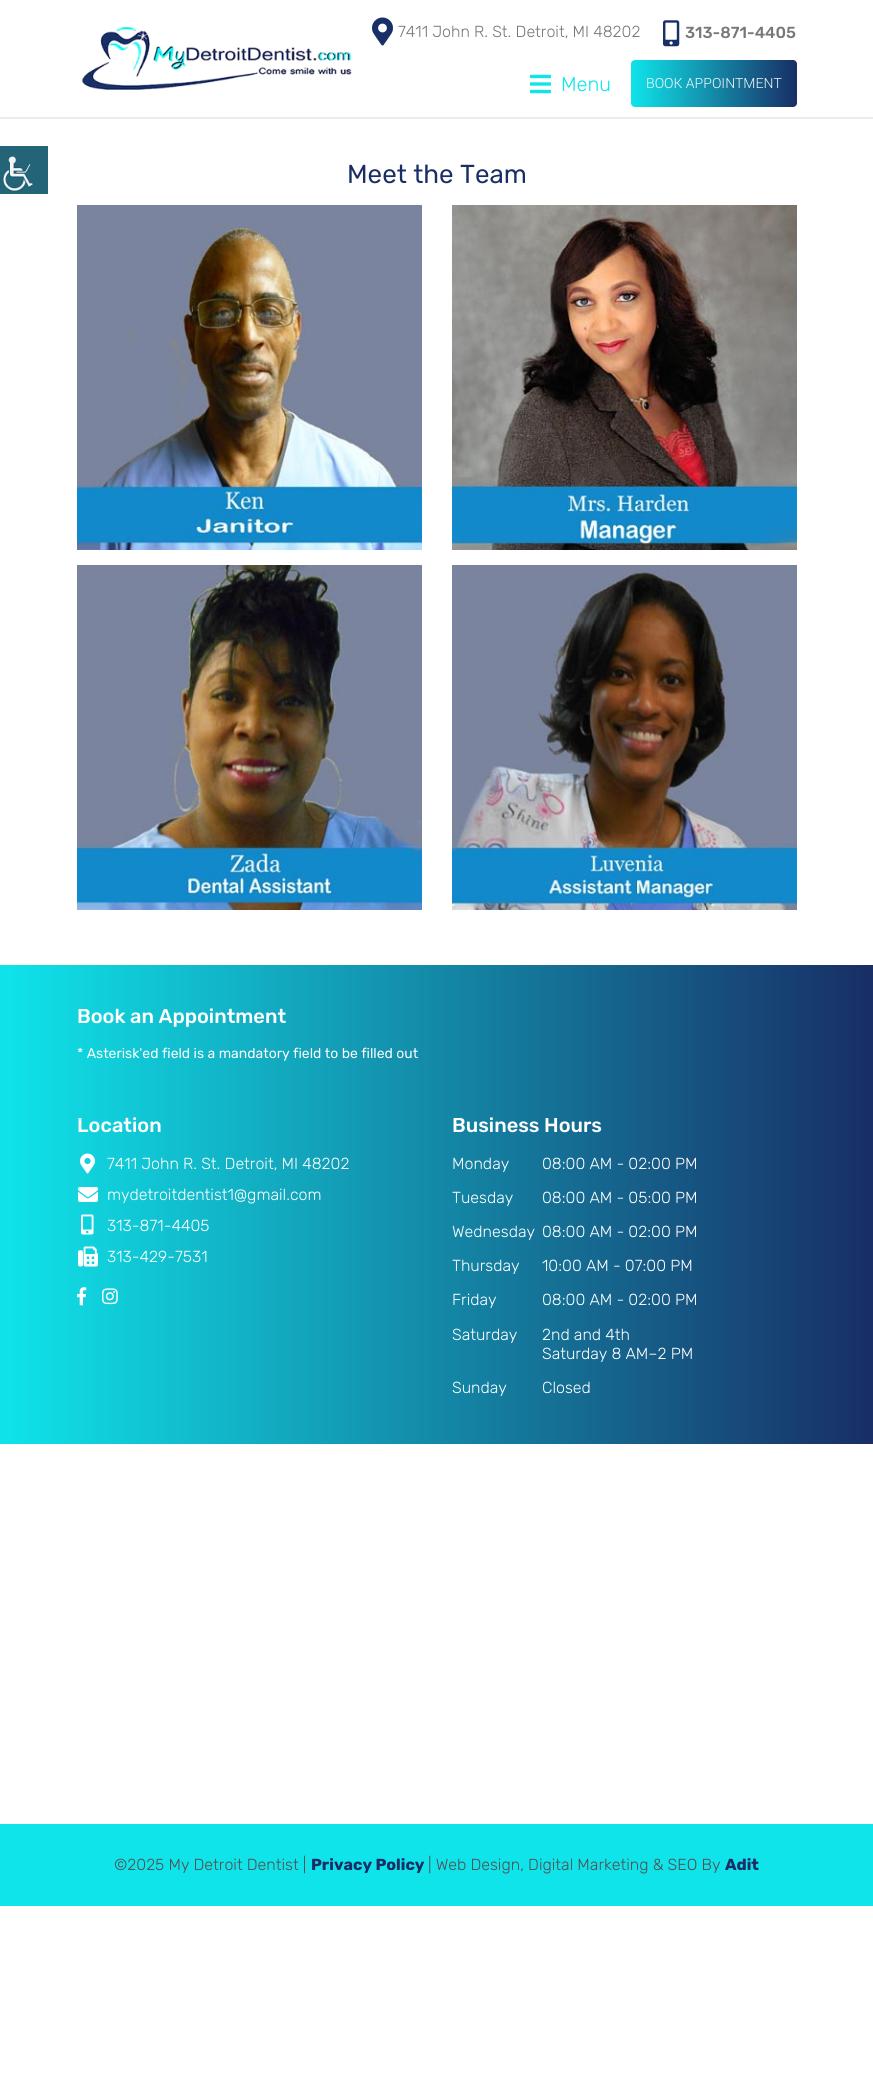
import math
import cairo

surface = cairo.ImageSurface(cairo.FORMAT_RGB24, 873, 2079)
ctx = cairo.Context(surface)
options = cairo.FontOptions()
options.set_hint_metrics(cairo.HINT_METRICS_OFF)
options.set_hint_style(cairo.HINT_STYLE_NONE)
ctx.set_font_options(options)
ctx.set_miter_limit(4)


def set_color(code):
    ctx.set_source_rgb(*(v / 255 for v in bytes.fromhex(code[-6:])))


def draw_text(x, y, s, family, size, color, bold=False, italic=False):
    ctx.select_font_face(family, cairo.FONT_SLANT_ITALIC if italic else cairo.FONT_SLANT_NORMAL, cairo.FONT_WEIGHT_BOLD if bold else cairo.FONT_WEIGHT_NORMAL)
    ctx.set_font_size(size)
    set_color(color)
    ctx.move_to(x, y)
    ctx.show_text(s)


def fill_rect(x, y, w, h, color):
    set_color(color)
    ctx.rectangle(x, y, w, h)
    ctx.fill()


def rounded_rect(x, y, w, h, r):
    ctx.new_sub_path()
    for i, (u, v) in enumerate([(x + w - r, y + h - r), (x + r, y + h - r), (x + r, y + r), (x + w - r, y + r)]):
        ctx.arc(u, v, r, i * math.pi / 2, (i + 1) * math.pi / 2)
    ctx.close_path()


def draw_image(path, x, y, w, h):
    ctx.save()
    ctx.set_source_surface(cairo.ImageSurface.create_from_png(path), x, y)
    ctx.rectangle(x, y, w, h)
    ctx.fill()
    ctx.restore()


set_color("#ffffff")
ctx.paint()
draw_image("assets/img1.png", 0, 146, 48, 48)
fill_rect(0, 117, 873, 2, "#ececed")
draw_image("assets/img2.png", 81, 26, 271, 64)
draw_image("assets/img3.png", 372, 17, 21, 29)
draw_text(398, 37, "7411 John R. St. Detroit, MI 48202", "Rubik Light", 16, "#777777")
draw_image("assets/img4.png", 663, 20, 17, 27)
draw_text(685, 38, "313-871-4405", "Rubik Medium", 16, "#777777")
draw_image("assets/img5.png", 530, 74, 21, 20)
draw_text(561, 91, "Menu", "Rubik Light", 20, "#0fe4ea")
gradient = cairo.LinearGradient(797, 83, 631, 84)
gradient.add_color_stop_rgba(0, 0.094, 0.18, 0.396, 1)
gradient.add_color_stop_rgba(1, 0.059, 0.894, 0.918, 1)
ctx.set_source(gradient)
rounded_rect(631, 60, 166, 47, 4)
ctx.fill()
draw_text(646, 88, "BOOK APPOINTMENT", "Roboto Light", 14, "#ffffff")
draw_text(347, 183, "Meet the Team", "Rubik", 26, "#182e65")
draw_image("assets/img6.png", 77, 205, 345, 345)
draw_image("assets/img7.png", 452, 205, 345, 345)
draw_image("assets/img8.png", 77, 565, 345, 345)
draw_image("assets/img9.png", 452, 565, 345, 345)
gradient = cairo.LinearGradient(873, 1205, 0, 1205)
gradient.add_color_stop_rgba(0, 0.094, 0.18, 0.396, 1)
gradient.add_color_stop_rgba(1, 0.059, 0.894, 0.918, 1)
ctx.set_source(gradient)
ctx.rectangle(0, 965, 873, 479)
ctx.fill()
draw_text(77, 1023, "Book an Appointment", "Rubik Medium", 20, "#ffffff")
draw_text(77, 1058, "* Asterisk'ed field is a mandatory field to be filled out", "Rubik", 14, "#ffffff")
draw_text(77, 1132, "Location", "Rubik Medium", 20, "#ffffff")
draw_image("assets/img10.png", 80, 1153, 15, 21)
draw_text(107, 1169, "7411 John R. St. Detroit, MI 48202", "Rubik Light", 16, "#ffffff")
draw_image("assets/img11.png", 78, 1187, 20, 15)
draw_text(107, 1200, "mydetroitdentist1@gmail.com", "Rubik Light", 16, "#ffffff")
draw_image("assets/img12.png", 81, 1214, 13, 21)
draw_text(107, 1231, "313-871-4405", "Rubik Light", 16, "#ffffff")
draw_image("assets/img13.png", 78, 1246, 20, 21)
draw_text(107, 1262, "313-429-7531", "Rubik Light", 16, "#ffffff")
draw_image("assets/img14.png", 77, 1287, 10, 19)
draw_image("assets/img15.png", 102, 1288, 16, 17)
draw_text(452, 1132, "Business Hours", "Rubik Medium", 20, "#ffffff")
draw_text(452, 1169, "Monday", "Rubik Light", 16, "#ffffff")
draw_text(542, 1169, "08:00 AM - 02:00 PM", "Rubik Light", 16, "#ffffff")
draw_text(452, 1203, "Tuesday", "Rubik Light", 16, "#ffffff")
draw_text(542, 1203, "08:00 AM - 05:00 PM", "Rubik Light", 16, "#ffffff")
draw_text(452, 1237, "Wednesday", "Rubik Light", 16, "#ffffff")
draw_text(542, 1237, "08:00 AM - 02:00 PM", "Rubik Light", 16, "#ffffff")
draw_text(452, 1271, "Thursday", "Rubik Light", 16, "#ffffff")
draw_text(542, 1271, "10:00 AM - 07:00 PM", "Rubik Light", 16, "#ffffff")
draw_text(452, 1305, "Friday", "Rubik Light", 16, "#ffffff")
draw_text(542, 1305, "08:00 AM - 02:00 PM", "Rubik Light", 16, "#ffffff")
draw_text(452, 1340, "Saturday", "Rubik Light", 16, "#ffffff")
draw_text(542, 1340, "2nd and 4th", "Rubik Light", 16, "#ffffff")
draw_text(542, 1359, "Saturday 8 AM–2 PM", "Rubik Light", 16, "#ffffff")
draw_text(452, 1393, "Sunday", "Rubik Light", 16, "#ffffff")
draw_text(542, 1393, "Closed", "Rubik Light", 16, "#ffffff")
fill_rect(0, 1824, 873, 82, "#0fe4ea")
draw_text(114, 1870, "©2025 My Detroit Dentist |", "Rubik Light", 16, "#505050")
draw_text(311, 1870, "Privacy Policy", "Rubik", 16, "#182e65", bold=True)
draw_text(428, 1870, "| Web Design, Digital Marketing & SEO By", "Rubik Light", 16, "#505050")
draw_text(725, 1870, "Adit", "Rubik", 16, "#182e65", bold=True)
surface.write_to_png("output.png")
